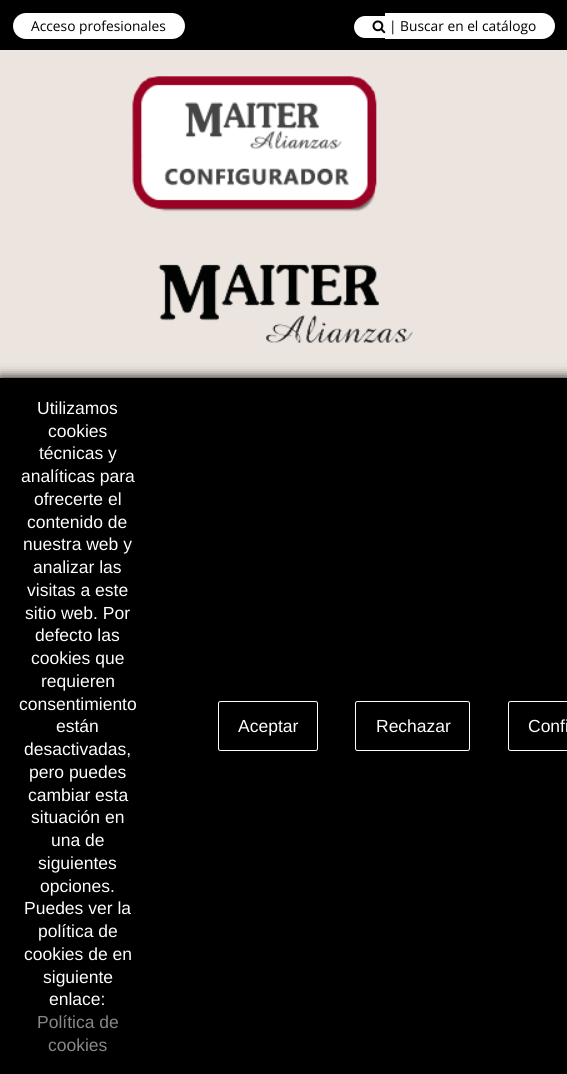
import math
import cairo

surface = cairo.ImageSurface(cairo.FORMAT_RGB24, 567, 1074)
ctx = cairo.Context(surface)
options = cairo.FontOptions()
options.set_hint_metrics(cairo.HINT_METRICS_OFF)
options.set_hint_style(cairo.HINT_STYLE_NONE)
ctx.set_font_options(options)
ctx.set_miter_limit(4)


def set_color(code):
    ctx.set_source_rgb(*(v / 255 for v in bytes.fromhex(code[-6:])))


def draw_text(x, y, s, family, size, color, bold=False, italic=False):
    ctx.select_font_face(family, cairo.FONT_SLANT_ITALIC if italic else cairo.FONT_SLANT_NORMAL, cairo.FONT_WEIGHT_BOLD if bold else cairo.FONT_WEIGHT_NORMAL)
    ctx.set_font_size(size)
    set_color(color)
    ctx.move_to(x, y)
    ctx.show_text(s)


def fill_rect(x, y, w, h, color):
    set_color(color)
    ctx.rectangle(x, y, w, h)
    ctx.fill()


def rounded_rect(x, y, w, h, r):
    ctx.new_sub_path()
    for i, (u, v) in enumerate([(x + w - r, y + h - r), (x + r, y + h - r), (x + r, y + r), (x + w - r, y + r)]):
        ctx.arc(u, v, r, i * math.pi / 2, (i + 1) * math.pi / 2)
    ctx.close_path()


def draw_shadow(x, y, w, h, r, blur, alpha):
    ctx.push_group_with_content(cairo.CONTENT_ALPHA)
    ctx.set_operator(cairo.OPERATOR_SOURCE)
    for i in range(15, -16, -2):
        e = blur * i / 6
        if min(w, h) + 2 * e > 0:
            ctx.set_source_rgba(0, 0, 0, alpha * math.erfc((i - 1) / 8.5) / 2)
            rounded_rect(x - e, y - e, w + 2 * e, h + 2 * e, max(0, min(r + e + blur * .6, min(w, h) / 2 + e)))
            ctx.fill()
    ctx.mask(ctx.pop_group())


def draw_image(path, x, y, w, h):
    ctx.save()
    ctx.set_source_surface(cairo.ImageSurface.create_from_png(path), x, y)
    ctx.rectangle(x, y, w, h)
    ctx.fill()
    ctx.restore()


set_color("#ece5df")
ctx.paint()
fill_rect(0, 0, 567, 50, "#000000")
set_color("#ffffff")
rounded_rect(13, 13, 172, 26, 13)
ctx.fill()
draw_text(31, 31, "Acceso profesionales", "Open Sans", 13.75, "#000000")
set_color("#ffffff")
ctx.new_path()
ctx.move_to(365, 16)
ctx.line_to(385, 16)
ctx.line_to(385, 38)
ctx.line_to(365, 38)
ctx.curve_to(359, 38, 354, 33, 354, 27)
ctx.curve_to(354, 21, 359, 16, 365, 16)
ctx.close_path()
ctx.fill()
ctx.new_path()
ctx.move_to(385, 13)
ctx.line_to(542, 13)
ctx.curve_to(549, 13, 555, 19, 555, 26)
ctx.curve_to(555, 33, 549, 39, 542, 39)
ctx.line_to(385, 39)
ctx.close_path()
ctx.fill()
draw_image("assets/img1.png", 372, 20, 14, 14)
draw_text(389, 31, "| Buscar en el catálogo", "Open Sans", 13.75, "#000000")
draw_image("assets/img2.png", 132, 76, 245, 136)
draw_image("assets/img3.png", 158, 263, 255, 80)
set_color("#000000")
draw_shadow(0, 378, 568, 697, 0, 6, 1)
fill_rect(0, 378, 567, 696, "#000000")
draw_text(37, 414, "Utilizamos", "Liberation Sans", 17.5, "#ffffff")
draw_text(48, 437, "cookies", "Liberation Sans", 17.5, "#ffffff")
draw_text(39, 459, "técnicas y", "Liberation Sans", 17.5, "#ffffff")
draw_text(21, 482, "analíticas para", "Liberation Sans", 17.5, "#ffffff")
draw_text(34, 505, "ofrecerte el", "Liberation Sans", 17.5, "#ffffff")
draw_text(27, 528, "contenido de", "Liberation Sans", 17.5, "#ffffff")
draw_text(23, 550, "nuestra web y", "Liberation Sans", 17.5, "#ffffff")
draw_text(33, 573, "analizar las", "Liberation Sans", 17.5, "#ffffff")
draw_text(27, 596, "visitas a este", "Liberation Sans", 17.5, "#ffffff")
draw_text(25, 619, "sitio web. Por", "Liberation Sans", 17.5, "#ffffff")
draw_text(35, 641, "defecto las", "Liberation Sans", 17.5, "#ffffff")
draw_text(31, 664, "cookies que", "Liberation Sans", 17.5, "#ffffff")
draw_text(41, 687, "requieren", "Liberation Sans", 17.5, "#ffffff")
draw_text(19, 710, "consentimiento", "Liberation Sans", 17.5, "#ffffff")
draw_text(56, 732, "están", "Liberation Sans", 17.5, "#ffffff")
draw_text(24, 755, "desactivadas,", "Liberation Sans", 17.5, "#ffffff")
draw_text(29, 778, "pero puedes", "Liberation Sans", 17.5, "#ffffff")
draw_text(28, 801, "cambiar esta", "Liberation Sans", 17.5, "#ffffff")
draw_text(31, 823, "situación en", "Liberation Sans", 17.5, "#ffffff")
draw_text(51, 846, "una de", "Liberation Sans", 17.5, "#ffffff")
draw_text(38, 869, "siguientes", "Liberation Sans", 17.5, "#ffffff")
draw_text(40, 892, "opciones.", "Liberation Sans", 17.5, "#ffffff")
draw_text(24, 914, "Puedes ver la", "Liberation Sans", 17.5, "#ffffff")
draw_text(38, 937, "política de", "Liberation Sans", 17.5, "#ffffff")
draw_text(24, 960, "cookies de en", "Liberation Sans", 17.5, "#ffffff")
draw_text(43, 983, "siguiente", "Liberation Sans", 17.5, "#ffffff")
draw_text(49, 1005, "enlace:", "Liberation Sans", 17.5, "#ffffff")
draw_text(37, 1028, "Política de", "Liberation Sans", 17.5, "#888888")
draw_text(48, 1051, "cookies", "Liberation Sans", 17.5, "#888888")
rounded_rect(218.5, 701.5, 99, 49, 2)
set_color("#ffffff")
ctx.set_line_width(1)
ctx.stroke()
draw_text(238, 732, "Aceptar", "Liberation Sans", 17.5, "#ffffff")
rounded_rect(355.5, 701.5, 114, 49, 2)
ctx.stroke()
draw_text(376, 732, "Rechazar", "Liberation Sans", 17.5, "#ffffff")
rounded_rect(508.5, 701.5, 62, 49, 2)
ctx.stroke()
draw_text(528, 732, "Confi", "Liberation Sans", 17.5, "#ffffff")
surface.write_to_png("output.png")
